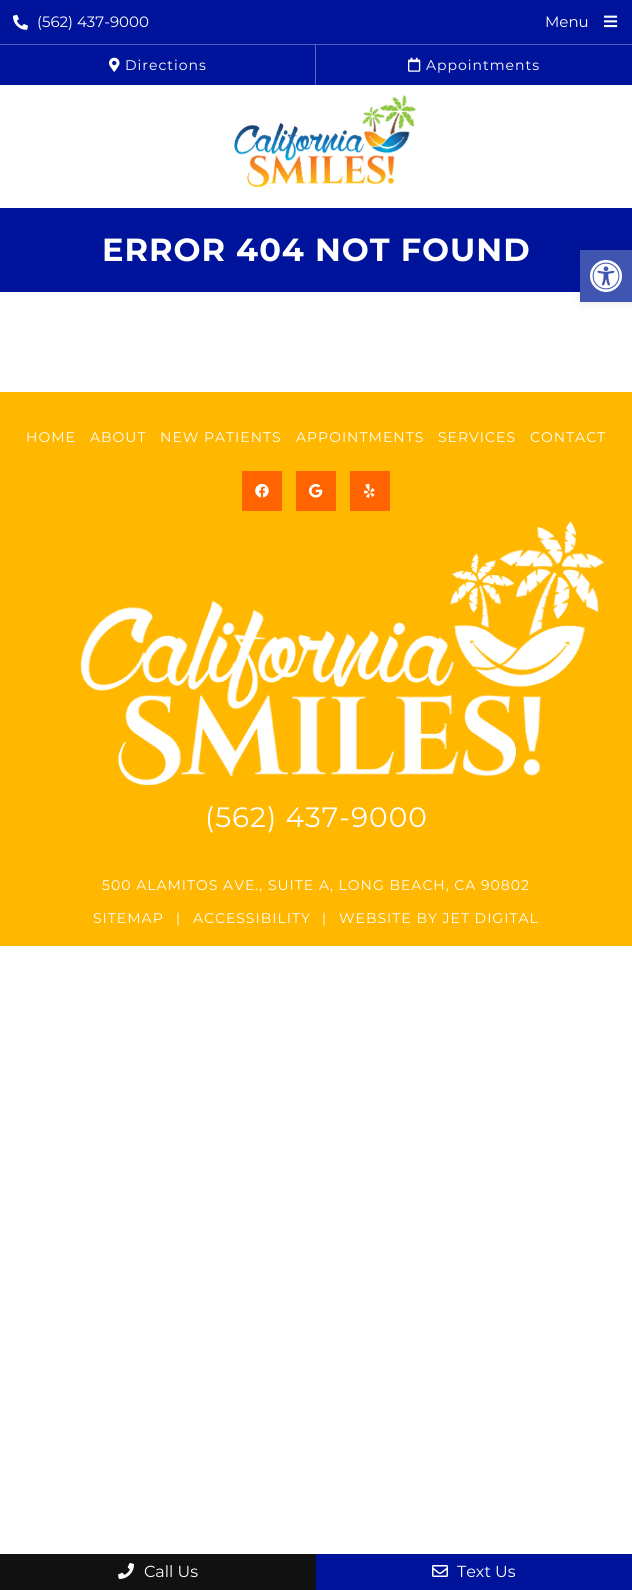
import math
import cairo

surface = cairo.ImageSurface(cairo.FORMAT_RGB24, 632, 1590)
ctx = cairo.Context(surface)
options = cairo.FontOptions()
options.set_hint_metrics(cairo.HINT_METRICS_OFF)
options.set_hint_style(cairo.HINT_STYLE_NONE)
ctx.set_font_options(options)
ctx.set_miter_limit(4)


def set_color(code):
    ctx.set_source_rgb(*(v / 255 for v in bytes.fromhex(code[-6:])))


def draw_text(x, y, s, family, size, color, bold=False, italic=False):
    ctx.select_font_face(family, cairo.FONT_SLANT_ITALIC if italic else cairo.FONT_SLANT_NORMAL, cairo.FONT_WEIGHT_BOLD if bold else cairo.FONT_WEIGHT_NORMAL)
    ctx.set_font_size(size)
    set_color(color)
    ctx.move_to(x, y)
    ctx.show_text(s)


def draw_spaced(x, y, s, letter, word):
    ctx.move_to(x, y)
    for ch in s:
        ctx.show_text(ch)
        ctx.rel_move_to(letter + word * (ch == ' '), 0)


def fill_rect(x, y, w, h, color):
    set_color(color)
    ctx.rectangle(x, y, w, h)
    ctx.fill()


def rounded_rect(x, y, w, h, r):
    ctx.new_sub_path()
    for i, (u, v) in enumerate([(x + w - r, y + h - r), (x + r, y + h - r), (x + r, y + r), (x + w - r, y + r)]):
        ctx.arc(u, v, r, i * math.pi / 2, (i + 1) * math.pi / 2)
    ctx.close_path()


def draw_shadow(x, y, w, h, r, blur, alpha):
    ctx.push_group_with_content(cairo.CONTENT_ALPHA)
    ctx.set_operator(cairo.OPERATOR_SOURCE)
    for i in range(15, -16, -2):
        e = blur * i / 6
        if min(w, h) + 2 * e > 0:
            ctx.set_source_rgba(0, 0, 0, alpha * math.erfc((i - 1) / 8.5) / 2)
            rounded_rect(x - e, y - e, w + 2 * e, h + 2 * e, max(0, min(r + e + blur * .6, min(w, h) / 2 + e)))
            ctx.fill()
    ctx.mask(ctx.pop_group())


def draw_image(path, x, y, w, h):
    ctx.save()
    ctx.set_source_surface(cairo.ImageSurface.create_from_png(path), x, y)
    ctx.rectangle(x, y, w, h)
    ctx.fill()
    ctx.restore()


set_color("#ffffff")
ctx.paint()
fill_rect(0, 0, 632, 85, "#00149b")
draw_image("assets/img1.png", 13, 14, 15, 16)
draw_text(37, 27, "(562) 437-9000", "Montserrat", 15, "#ffffff")
draw_text(545, 27, "Menu", "Montserrat", 15, "#ffffff")
draw_image("assets/img2.png", 604, 15, 14, 13)
fill_rect(0, 44, 632, 1, "#525fbb")
fill_rect(315, 45, 1, 40, "#5c69bf")
draw_image("assets/img3.png", 109, 57, 11, 15)
ctx.set_font_size(14)
set_color("#ffffff")
draw_spaced(125, 70, "Directions", 1, 0)
draw_image("assets/img4.png", 408, 57, 13, 15)
draw_spaced(426, 70, "Appointments", 1, 0)
draw_image("assets/img5.png", 234, 95, 182, 92)
fill_rect(0, 208, 632, 84, "#00149b")
ctx.select_font_face("Montserrat", cairo.FONT_SLANT_NORMAL, cairo.FONT_WEIGHT_BOLD)
ctx.set_font_size(32)
set_color("#ffffff")
draw_spaced(102, 261, "ERROR 404 NOT FOUND", 1, 0)
fill_rect(0, 392, 632, 554, "#ffb700")
ctx.select_font_face("Montserrat")
ctx.set_font_size(14)
set_color("#ffffff")
draw_spaced(26, 442, "HOME", 1, 0)
draw_spaced(90, 442, "ABOUT", 1, 0)
draw_spaced(160, 442, "NEW PATIENTS", 1, 0)
draw_spaced(296, 442, "APPOINTMENTS", 1, 0)
draw_spaced(438, 442, "SERVICES", 1, 0)
draw_spaced(530, 442, "CONTACT", 1, 0)
fill_rect(242, 471, 40, 40, "#ff6400")
draw_image("assets/img6.png", 255, 484, 14, 14)
fill_rect(296, 471, 40, 40, "#ff6400")
draw_image("assets/img7.png", 309, 484, 14, 14)
fill_rect(350, 471, 40, 40, "#ff6400")
draw_image("assets/img8.png", 364, 483, 11, 15)
draw_image("assets/img9.png", 80, 521, 524, 264)
ctx.set_font_size(28)
set_color("#ffffff")
draw_spaced(205, 827, "(562) 437-9000", 1, 0)
ctx.set_font_size(14)
draw_spaced(102, 890, "500 ALAMITOS AVE., SUITE A, LONG BEACH, CA 90802", 1, 0)
draw_spaced(93, 923, "SITEMAP", 1, 0)
draw_spaced(176, 923, "|", 1, 0)
draw_spaced(193, 923, "ACCESSIBILITY", 1, 0)
draw_spaced(322, 923, "|", 1, 0)
draw_spaced(339, 923, "WEBSITE BY JET DIGITAL", 1, 0)
set_color("#000000")
draw_shadow(580, 250, 52, 52, 0, 5, 0.1)
fill_rect(580, 250, 52, 52, "#4054b2")
draw_image("assets/img10.png", 590, 260, 32, 32)
fill_rect(0, 1554, 316, 36, "#111111")
draw_image("assets/img11.png", 118, 1563, 16, 16)
draw_text(144, 1577, "Call Us", "Montserrat", 16, "#ffffff")
fill_rect(316, 1554, 316, 36, "#00149b")
draw_image("assets/img12.png", 432, 1565, 16, 12)
draw_text(457, 1577, "Text Us", "Montserrat", 16, "#ffffff")
surface.write_to_png("output.png")
